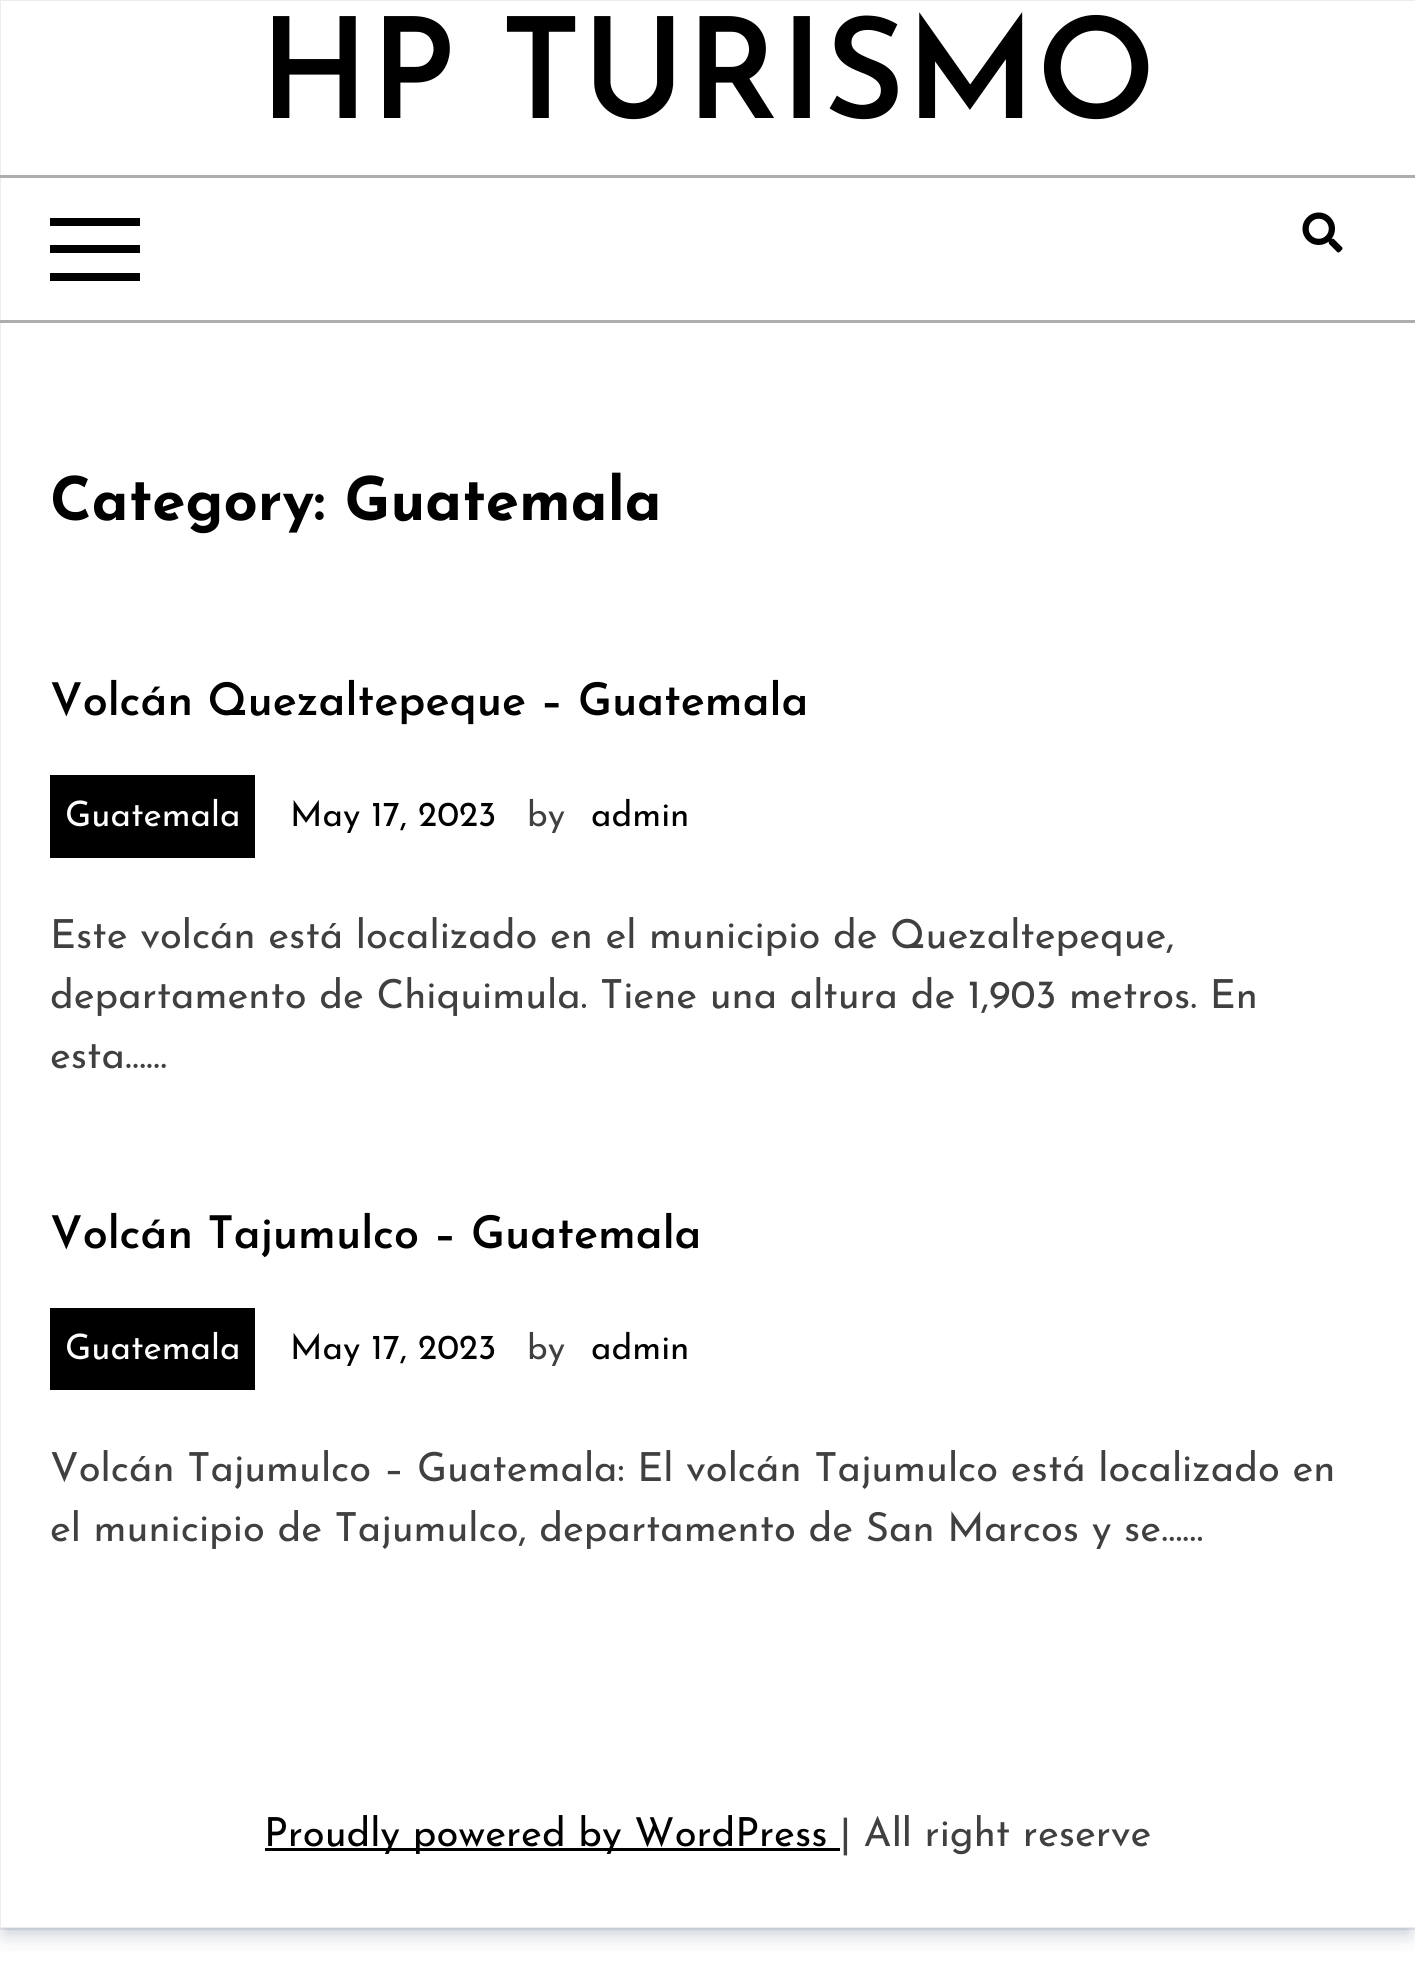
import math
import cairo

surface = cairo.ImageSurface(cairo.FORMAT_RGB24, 1415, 1974)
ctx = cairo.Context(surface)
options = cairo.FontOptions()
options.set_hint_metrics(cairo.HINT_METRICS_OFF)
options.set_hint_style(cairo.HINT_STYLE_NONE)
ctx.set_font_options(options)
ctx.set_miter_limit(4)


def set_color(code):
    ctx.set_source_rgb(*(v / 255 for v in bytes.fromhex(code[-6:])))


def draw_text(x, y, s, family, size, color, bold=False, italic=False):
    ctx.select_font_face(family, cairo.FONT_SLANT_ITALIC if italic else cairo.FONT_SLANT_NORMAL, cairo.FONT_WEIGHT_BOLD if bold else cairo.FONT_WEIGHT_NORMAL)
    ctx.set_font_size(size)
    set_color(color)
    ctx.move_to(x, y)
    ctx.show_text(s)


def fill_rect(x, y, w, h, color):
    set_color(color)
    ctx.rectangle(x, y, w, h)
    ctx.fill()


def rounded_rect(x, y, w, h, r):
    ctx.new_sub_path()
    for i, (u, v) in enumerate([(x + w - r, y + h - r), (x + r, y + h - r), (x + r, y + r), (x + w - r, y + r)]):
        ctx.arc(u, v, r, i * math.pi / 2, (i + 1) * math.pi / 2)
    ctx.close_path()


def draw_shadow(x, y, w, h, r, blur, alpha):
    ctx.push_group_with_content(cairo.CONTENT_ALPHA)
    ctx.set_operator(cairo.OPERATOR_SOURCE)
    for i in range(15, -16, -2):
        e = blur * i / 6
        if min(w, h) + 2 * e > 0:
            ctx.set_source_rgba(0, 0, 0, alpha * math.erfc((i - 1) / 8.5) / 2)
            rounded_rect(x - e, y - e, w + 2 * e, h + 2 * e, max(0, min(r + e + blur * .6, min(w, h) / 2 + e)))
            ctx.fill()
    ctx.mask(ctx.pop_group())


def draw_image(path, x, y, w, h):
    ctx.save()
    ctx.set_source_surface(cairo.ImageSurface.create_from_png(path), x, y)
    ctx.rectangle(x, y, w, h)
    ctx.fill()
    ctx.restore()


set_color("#ffffff")
ctx.paint()
ctx.rectangle(-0.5, -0.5, 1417, 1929)
set_color("#ebedf0")
ctx.set_line_width(3)
ctx.stroke()
ctx.save()
ctx.set_fill_rule(cairo.FILL_RULE_EVEN_ODD)
ctx.new_path()
ctx.move_to(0, 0)
ctx.line_to(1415, 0)
ctx.line_to(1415, 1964)
ctx.line_to(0, 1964)
ctx.close_path()
ctx.move_to(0, 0)
ctx.line_to(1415, 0)
ctx.line_to(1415, 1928)
ctx.line_to(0, 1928)
ctx.close_path()
ctx.clip()
set_color("#091e42")
draw_shadow(5, 15, 1405, 1918, 0, 10, 0.25)
ctx.restore()
draw_text(259, 118, "HP TURISMO", "Josefin Sans SemiBold", 140, "#000000")
fill_rect(0, 175, 1415, 3, "#adadad")
fill_rect(0, 320, 1415, 3, "#adadad")
fill_rect(50, 218, 90, 8, "#000000")
fill_rect(50, 245, 90, 8, "#000000")
fill_rect(50, 273, 90, 8, "#000000")
draw_image("assets/img1.png", 1302, 212, 41, 41)
draw_text(50, 520, "Category: Guatemala", "Josefin Sans", 60, "#000000", bold=True)
draw_text(50, 715, "Volcán Quezaltepeque – Guatemala", "Josefin Sans SemiBold", 45, "#000000")
fill_rect(50, 775, 205, 83, "#000000")
draw_text(65, 826, "Guatemala", "Josefin Sans", 35, "#ffffff")
draw_text(290, 826, "May 17, 2023", "Josefin Sans", 35, "#000000")
draw_text(527, 826, "by", "Josefin Sans", 35, "#404040")
draw_text(591, 826, "admin", "Josefin Sans", 35, "#000000")
draw_text(50, 948, "Este volcán está localizado en el municipio de Quezaltepeque,", "Josefin Sans", 40, "#404040")
draw_text(50, 1008, "departamento de Chiquimula. Tiene una altura de 1,903 metros. En", "Josefin Sans", 40, "#404040")
draw_text(50, 1068, "esta……", "Josefin Sans", 40, "#404040")
draw_text(50, 1248, "Volcán Tajumulco – Guatemala", "Josefin Sans SemiBold", 45, "#000000")
fill_rect(50, 1308, 205, 82, "#000000")
draw_text(65, 1359, "Guatemala", "Josefin Sans", 35, "#ffffff")
draw_text(290, 1359, "May 17, 2023", "Josefin Sans", 35, "#000000")
draw_text(527, 1359, "by", "Josefin Sans", 35, "#404040")
draw_text(591, 1359, "admin", "Josefin Sans", 35, "#000000")
draw_text(50, 1481, "Volcán Tajumulco – Guatemala: El volcán Tajumulco está localizado en", "Josefin Sans", 40, "#404040")
draw_text(50, 1541, "el municipio de Tajumulco, departamento de San Marcos y se……", "Josefin Sans", 40, "#404040")
fill_rect(265, 1848, 575, 3, "#000000")
draw_text(264, 1846, "Proudly powered by WordPress", "Josefin Sans", 40, "#000000")
draw_text(840, 1846, "| All right reserve", "Josefin Sans", 40, "#404040")
surface.write_to_png("output.png")
